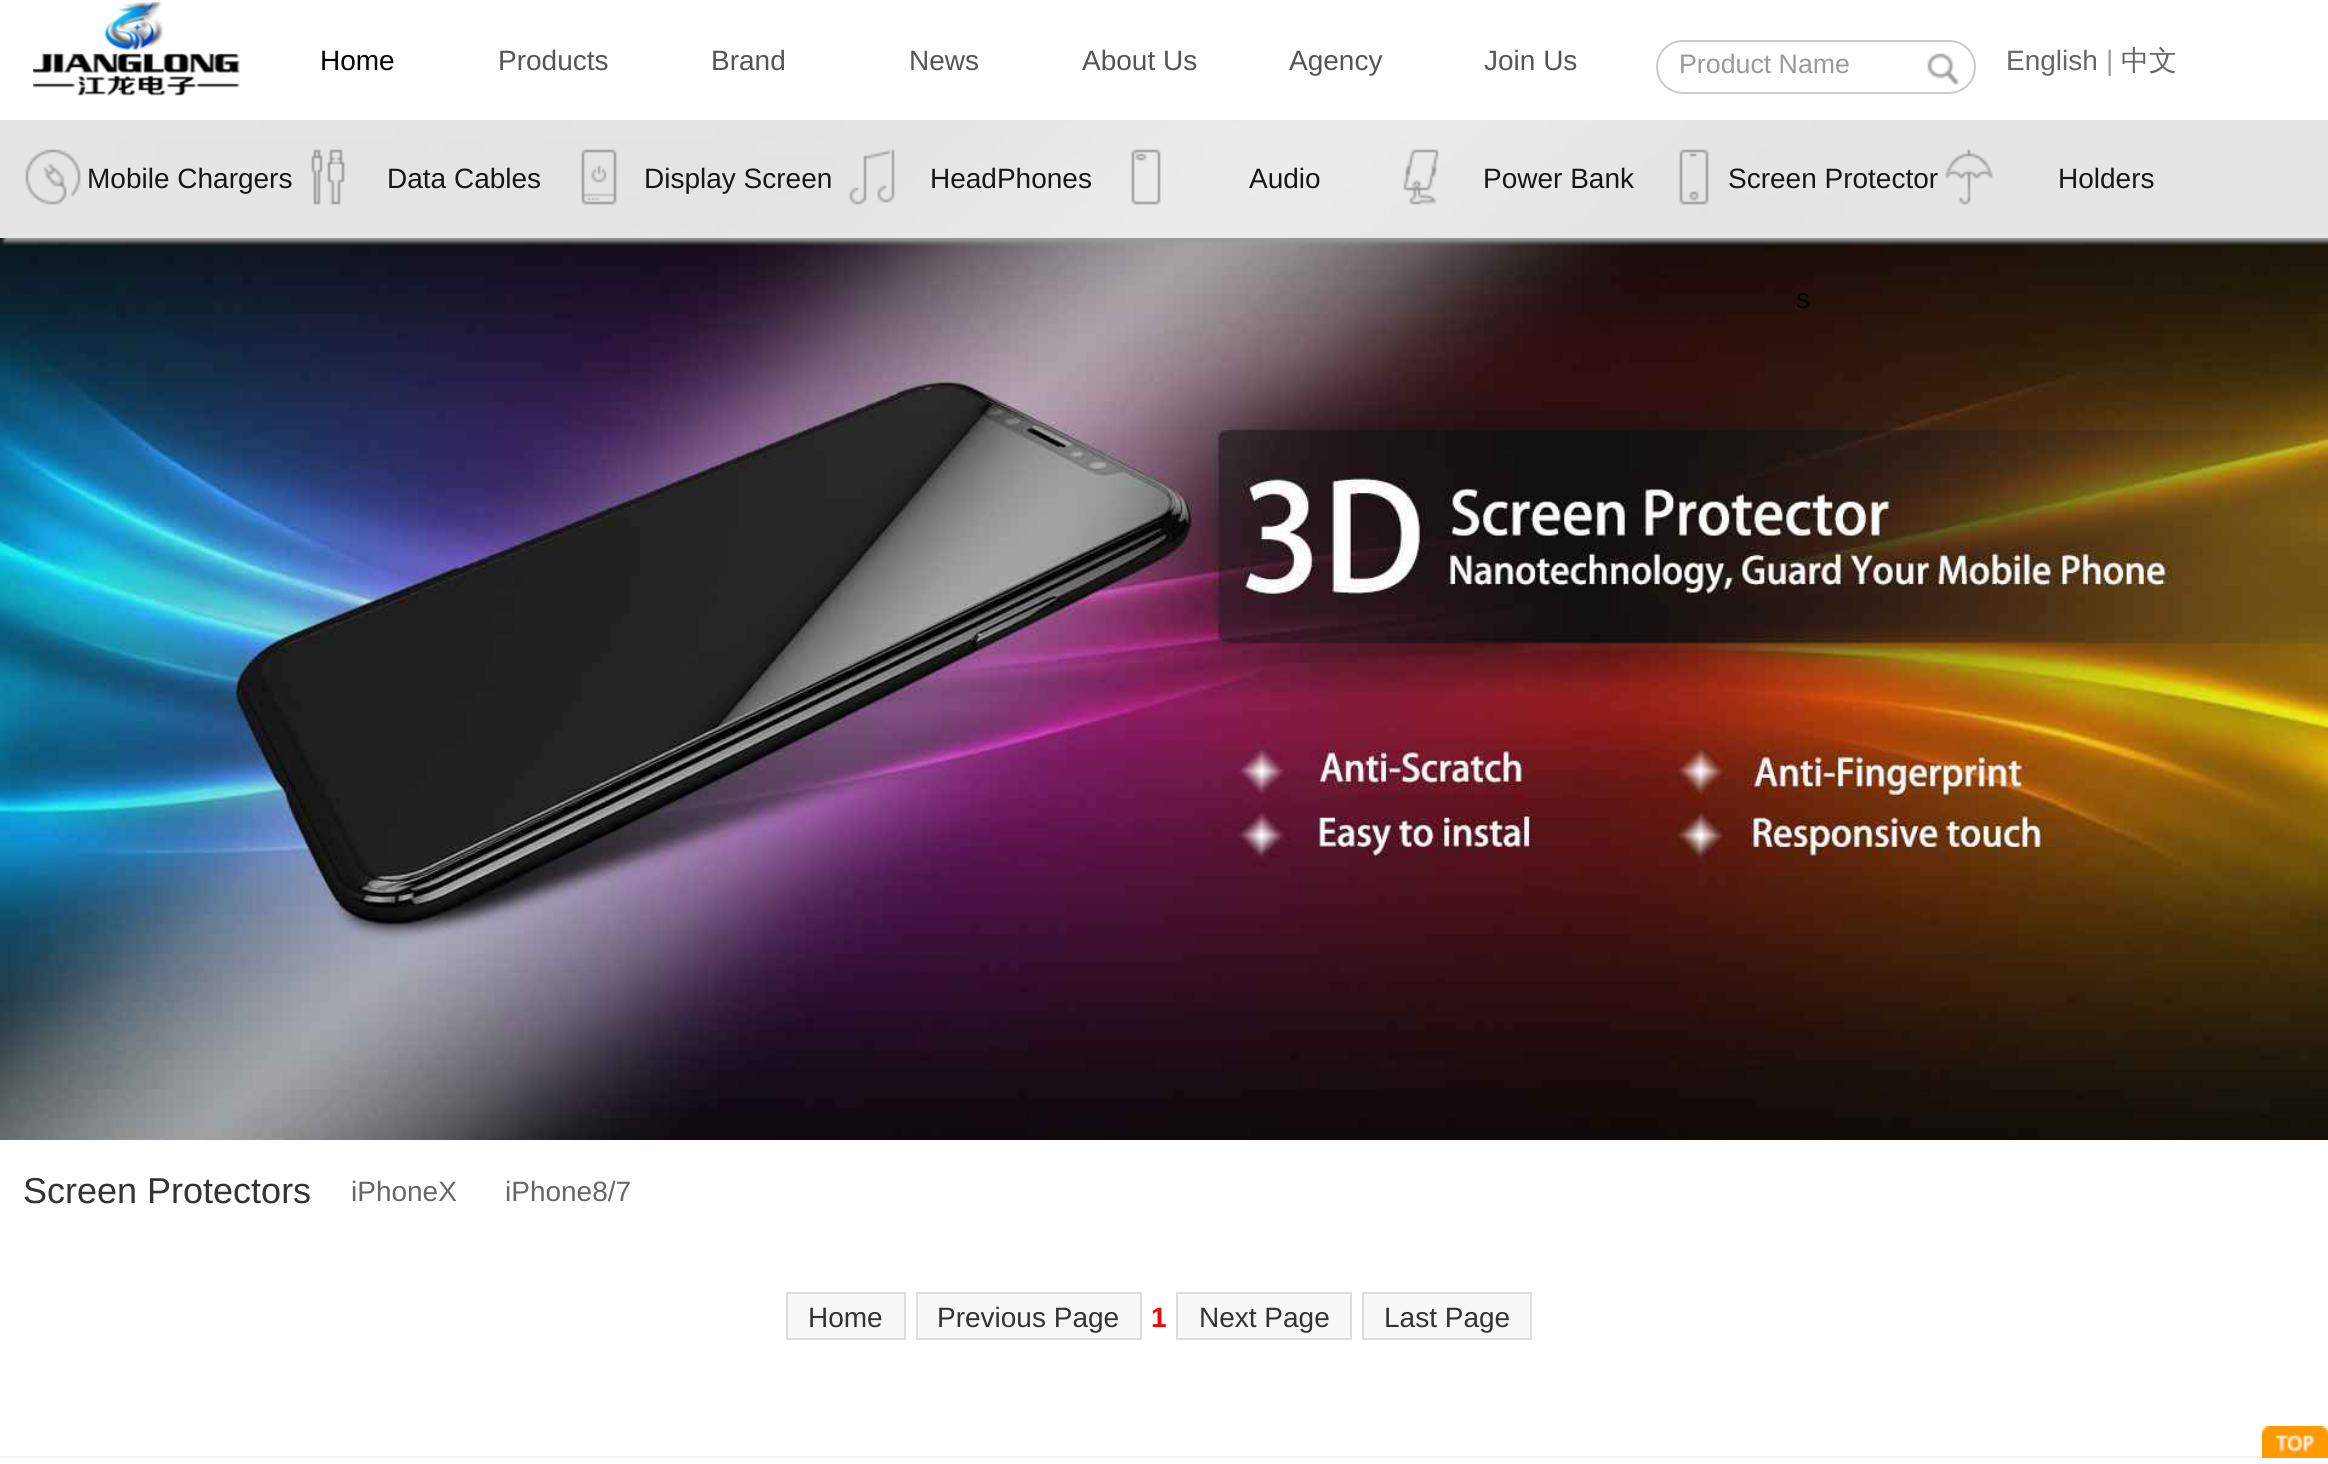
import math
import cairo

surface = cairo.ImageSurface(cairo.FORMAT_RGB24, 2328, 1464)
ctx = cairo.Context(surface)
options = cairo.FontOptions()
options.set_hint_metrics(cairo.HINT_METRICS_OFF)
options.set_hint_style(cairo.HINT_STYLE_NONE)
ctx.set_font_options(options)
ctx.set_miter_limit(4)


def set_color(code):
    ctx.set_source_rgb(*(v / 255 for v in bytes.fromhex(code[-6:])))


def draw_text(x, y, s, family, size, color, bold=False, italic=False):
    ctx.select_font_face(family, cairo.FONT_SLANT_ITALIC if italic else cairo.FONT_SLANT_NORMAL, cairo.FONT_WEIGHT_BOLD if bold else cairo.FONT_WEIGHT_NORMAL)
    ctx.set_font_size(size)
    set_color(color)
    ctx.move_to(x, y)
    ctx.show_text(s)


def fill_rect(x, y, w, h, color):
    set_color(color)
    ctx.rectangle(x, y, w, h)
    ctx.fill()


def rounded_rect(x, y, w, h, r):
    ctx.new_sub_path()
    for i, (u, v) in enumerate([(x + w - r, y + h - r), (x + r, y + h - r), (x + r, y + r), (x + w - r, y + r)]):
        ctx.arc(u, v, r, i * math.pi / 2, (i + 1) * math.pi / 2)
    ctx.close_path()


def draw_shadow(x, y, w, h, r, blur, alpha):
    ctx.push_group_with_content(cairo.CONTENT_ALPHA)
    ctx.set_operator(cairo.OPERATOR_SOURCE)
    for i in range(15, -16, -2):
        e = blur * i / 6
        if min(w, h) + 2 * e > 0:
            ctx.set_source_rgba(0, 0, 0, alpha * math.erfc((i - 1) / 8.5) / 2)
            rounded_rect(x - e, y - e, w + 2 * e, h + 2 * e, max(0, min(r + e + blur * .6, min(w, h) / 2 + e)))
            ctx.fill()
    ctx.mask(ctx.pop_group())


def draw_image(path, x, y, w, h):
    ctx.save()
    ctx.set_source_surface(cairo.ImageSurface.create_from_png(path), x, y)
    ctx.rectangle(x, y, w, h)
    ctx.fill()
    ctx.restore()


set_color("#ffffff")
ctx.paint()
draw_image("assets/img3.png", 0, 120, 2328, 1020)
ctx.save()
ctx.rectangle(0, 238, 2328, 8)
ctx.clip()
set_color("#999999")
draw_shadow(4, 122, 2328, 120, 0, 2, 1)
ctx.restore()
ctx.set_source_rgba(0.941, 0.941, 0.941, 0.95)
ctx.rectangle(0, 118, 2328, 120)
ctx.fill()
ctx.set_source_rgba(1, 1, 1, 0.92)
ctx.rectangle(0, 118, 2328, 2)
ctx.fill()
draw_image("assets/img1.png", 33, 2, 207, 94)
draw_text(320, 70, "Home", "Liberation Sans", 28, "#040201")
draw_text(498, 70, "Products", "Liberation Sans", 28, "#555555")
draw_text(711, 70, "Brand", "Liberation Sans", 28, "#555555")
draw_text(909, 70, "News", "Liberation Sans", 28, "#555555")
draw_text(1082, 70, "About Us", "Liberation Sans", 28, "#555555")
draw_text(1289, 70, "Agency", "Liberation Sans", 28, "#555555")
draw_text(1484, 70, "Join Us", "Liberation Sans", 28, "#555555")
rounded_rect(1657, 41, 318, 52, 26)
set_color("#cccccc")
ctx.stroke()
draw_text(1679, 73, "Product Name", "Liberation Sans", 26.75, "#999999")
draw_image("assets/img2.png", 1927, 53, 32, 32)
draw_text(2006, 70, "English", "Liberation Sans", 28, "#666666")
draw_text(2106, 70, "|", "Liberation Sans", 28, "#999999")
draw_text(2121, 70, "中文", "WenQuanYi Zen Hei Medium", 28, "#666666")
draw_image("assets/img4.png", 25, 149, 56, 56)
draw_text(87, 188, "Mobile Chargers", "Liberation Sans", 28, "#171717")
draw_image("assets/img5.png", 311, 149, 34, 56)
draw_text(387, 188, "Data Cables", "Liberation Sans", 28, "#171717")
draw_image("assets/img6.png", 581, 149, 36, 56)
draw_text(644, 188, "Display Screen", "Liberation Sans", 28, "#171717")
draw_image("assets/img7.png", 849, 149, 46, 56)
draw_text(930, 188, "HeadPhones", "Liberation Sans", 28, "#171717")
draw_image("assets/img8.png", 1131, 149, 30, 56)
draw_text(1249, 188, "Audio", "Liberation Sans", 28, "#171717")
draw_image("assets/img9.png", 1403, 149, 36, 56)
draw_text(1483, 188, "Power Bank", "Liberation Sans", 28, "#171717")
draw_image("assets/img10.png", 1679, 149, 30, 56)
draw_text(1728, 188, "Screen Protector", "Liberation Sans", 28, "#171717")
draw_text(1796, 308, "s", "Liberation Sans", 28, "#040201")
draw_image("assets/img11.png", 1945, 149, 48, 56)
draw_text(2058, 188, "Holders", "Liberation Sans", 28, "#171717")
draw_text(23, 1203, "Screen Protectors", "Liberation Sans", 36, "#333333")
draw_text(351, 1201, "iPhoneX", "Liberation Sans", 28, "#666666")
draw_text(505, 1201, "iPhone8/7", "Liberation Sans", 28, "#666666")
set_color("#f8f8f8")
ctx.rectangle(787, 1293, 118, 46)
ctx.fill_preserve()
set_color("#dddddd")
ctx.stroke()
draw_text(808, 1327, "Home", "Liberation Sans", 28, "#333333")
set_color("#f8f8f8")
ctx.rectangle(917, 1293, 224, 46)
ctx.fill_preserve()
set_color("#dddddd")
ctx.stroke()
draw_text(937, 1327, "Previous Page", "Liberation Sans", 28, "#333333")
draw_text(1151, 1327, "1", "Liberation Sans", 28, "#ff0000", bold=True)
set_color("#f8f8f8")
ctx.rectangle(1177, 1293, 174, 46)
ctx.fill_preserve()
set_color("#dddddd")
ctx.stroke()
draw_text(1199, 1327, "Next Page", "Liberation Sans", 28, "#333333")
set_color("#f8f8f8")
ctx.rectangle(1363, 1293, 168, 46)
ctx.fill_preserve()
set_color("#dddddd")
ctx.stroke()
draw_text(1384, 1327, "Last Page", "Liberation Sans", 28, "#333333")
fill_rect(0, 1456, 2262, 2, "#f2f2f2")
draw_image("assets/img12.png", 2262, 1426, 66, 32)
surface.write_to_png("output.png")
